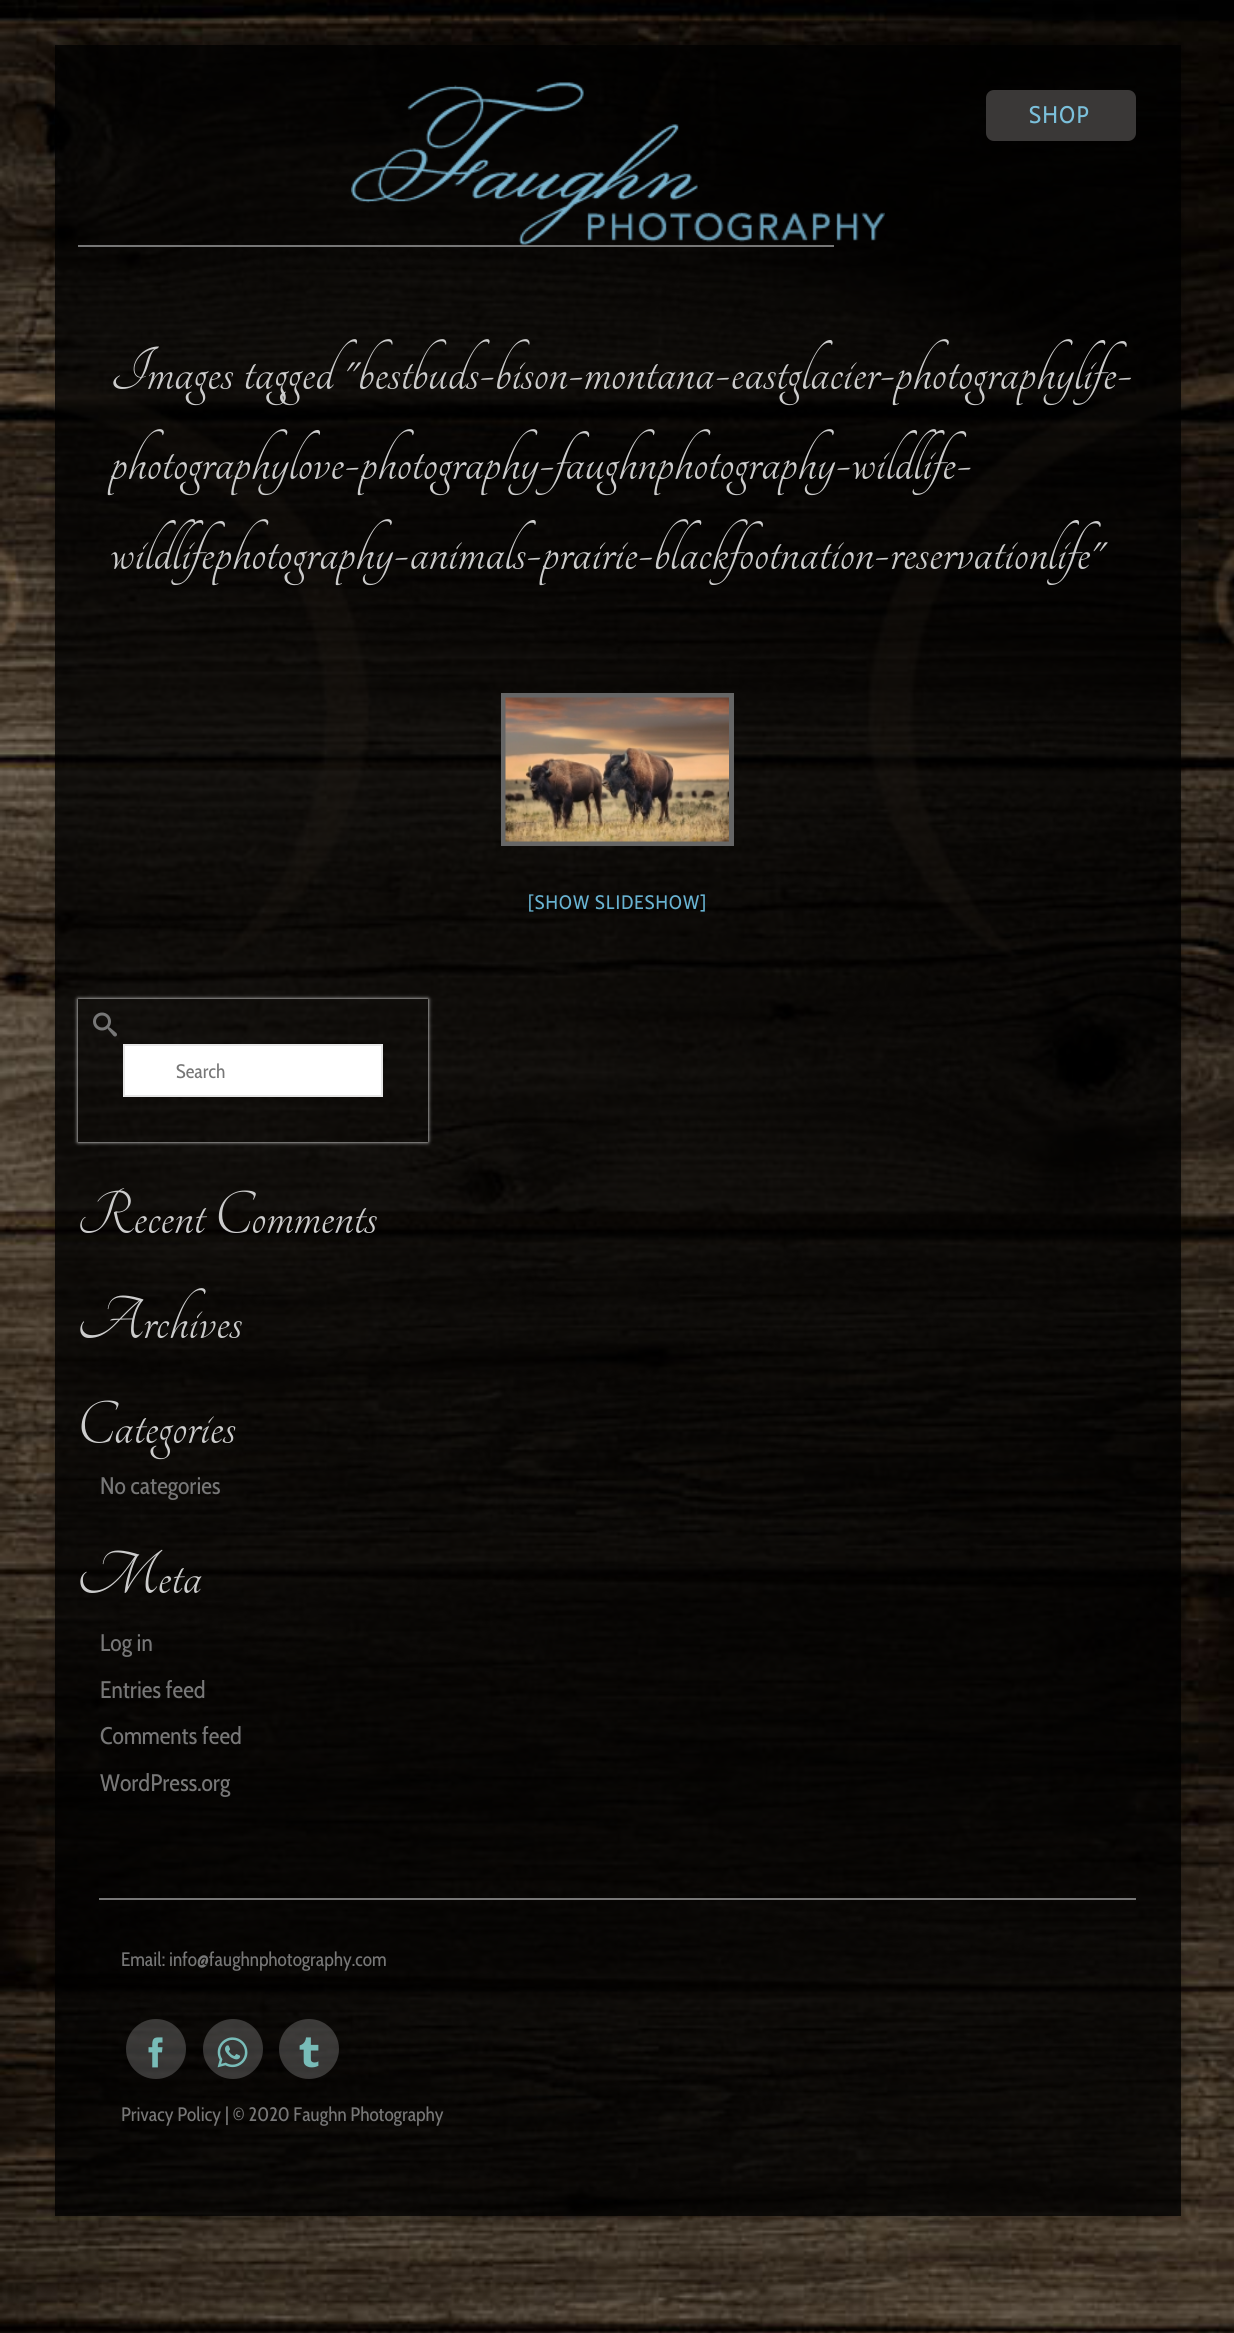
import math
import cairo

surface = cairo.ImageSurface(cairo.FORMAT_RGB24, 1234, 2333)
ctx = cairo.Context(surface)
options = cairo.FontOptions()
options.set_hint_metrics(cairo.HINT_METRICS_OFF)
options.set_hint_style(cairo.HINT_STYLE_NONE)
ctx.set_font_options(options)
ctx.set_miter_limit(4)


def set_color(code):
    ctx.set_source_rgb(*(v / 255 for v in bytes.fromhex(code[-6:])))


def draw_text(x, y, s, family, size, color, bold=False, italic=False):
    ctx.select_font_face(family, cairo.FONT_SLANT_ITALIC if italic else cairo.FONT_SLANT_NORMAL, cairo.FONT_WEIGHT_BOLD if bold else cairo.FONT_WEIGHT_NORMAL)
    ctx.set_font_size(size)
    set_color(color)
    ctx.move_to(x, y)
    ctx.show_text(s)


def draw_spaced(x, y, s, letter, word):
    ctx.move_to(x, y)
    for ch in s:
        ctx.show_text(ch)
        ctx.rel_move_to(letter + word * (ch == ' '), 0)


def fill_rect(x, y, w, h, color):
    set_color(color)
    ctx.rectangle(x, y, w, h)
    ctx.fill()


def rounded_rect(x, y, w, h, r):
    ctx.new_sub_path()
    for i, (u, v) in enumerate([(x + w - r, y + h - r), (x + r, y + h - r), (x + r, y + r), (x + w - r, y + r)]):
        ctx.arc(u, v, r, i * math.pi / 2, (i + 1) * math.pi / 2)
    ctx.close_path()


def draw_shadow(x, y, w, h, r, blur, alpha):
    ctx.push_group_with_content(cairo.CONTENT_ALPHA)
    ctx.set_operator(cairo.OPERATOR_SOURCE)
    for i in range(15, -16, -2):
        e = blur * i / 6
        if min(w, h) + 2 * e > 0:
            ctx.set_source_rgba(0, 0, 0, alpha * math.erfc((i - 1) / 8.5) / 2)
            rounded_rect(x - e, y - e, w + 2 * e, h + 2 * e, max(0, min(r + e + blur * .6, min(w, h) / 2 + e)))
            ctx.fill()
    ctx.mask(ctx.pop_group())


def draw_image(path, x, y, w, h):
    ctx.save()
    ctx.set_source_surface(cairo.ImageSurface.create_from_png(path), x, y)
    ctx.rectangle(x, y, w, h)
    ctx.fill()
    ctx.restore()


set_color("#ffffff")
ctx.paint()
draw_image("assets/img1.png", 0, 0, 1234, 2333)
ctx.save()
ctx.set_fill_rule(cairo.FILL_RULE_EVEN_ODD)
ctx.new_path()
ctx.move_to(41, 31)
ctx.line_to(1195, 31)
ctx.line_to(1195, 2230)
ctx.line_to(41, 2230)
ctx.close_path()
ctx.move_to(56, 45)
ctx.line_to(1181, 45)
ctx.line_to(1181, 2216)
ctx.line_to(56, 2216)
ctx.close_path()
ctx.clip()
set_color("#000000")
draw_shadow(54, 44, 1128, 2173, 0, 4, 0.16)
ctx.restore()
ctx.set_source_rgba(0, 0, 0, 0.8)
ctx.rectangle(55, 45, 1126, 216)
ctx.fill()
draw_image("assets/img2.png", 351, 82, 534, 163)
set_color("#3a3837")
rounded_rect(986, 90, 150, 51, 8)
ctx.fill()
ctx.select_font_face("Cabin Condensed")
ctx.set_font_size(24)
set_color("#7bc0db")
draw_spaced(1029, 123, "SHOP", 1.5, 0)
fill_rect(78, 245, 756, 2, "#777777")
ctx.set_source_rgba(0, 0, 0, 0.8)
ctx.rectangle(55, 261, 1126, 1607)
ctx.fill()
draw_text(110, 389, "Images tagged \"bestbuds-bison-montana-eastglacier-photographylife-", "Tangerine", 66, "#cccccc")
draw_text(110, 479, "photographylove-photography-faughnphotography-wildlife-", "Tangerine", 66, "#cccccc")
draw_text(110, 569, "wildlifephotography-animals-prairie-blackfootnation-reservationlife\"", "Tangerine", 66, "#cccccc")
ctx.rectangle(503.5, 695.5, 228, 148)
set_color("#666666")
ctx.set_line_width(5)
ctx.stroke()
draw_image("assets/img3.png", 505, 697, 224, 145)
ctx.select_font_face("Cabin Condensed")
ctx.set_font_size(19.5)
set_color("#68b3d2")
draw_spaced(528, 909, "[SHOW SLIDESHOW]", 1.1, 0)
ctx.save()
ctx.set_fill_rule(cairo.FILL_RULE_EVEN_ODD)
ctx.new_path()
ctx.move_to(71, 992)
ctx.line_to(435, 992)
ctx.line_to(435, 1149)
ctx.line_to(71, 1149)
ctx.close_path()
ctx.move_to(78, 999)
ctx.line_to(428, 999)
ctx.line_to(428, 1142)
ctx.line_to(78, 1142)
ctx.close_path()
ctx.clip()
set_color("#ffffff")
draw_shadow(78, 999, 350, 143, 0, 2, 1)
ctx.restore()
draw_image("assets/img4.png", 93, 1012, 24, 25)
set_color("#ffffff")
ctx.rectangle(124, 1045, 258, 51)
ctx.fill_preserve()
set_color("#e7e7e7")
ctx.set_line_width(2)
ctx.stroke()
draw_text(176, 1078, "Search", "Cabin Condensed", 19.5, "#777777")
draw_text(77, 1233, "Recent Comments", "Tangerine", 66, "#cccccc")
draw_text(77, 1338, "Archives", "Tangerine", 66, "#cccccc")
draw_text(77, 1443, "Categories", "Tangerine", 66, "#cccccc")
draw_text(100, 1494, "No categories", "Cabin Condensed", 24, "#777777")
draw_text(77, 1593, "Meta", "Tangerine", 66, "#cccccc")
draw_text(100, 1651, "Log in", "Cabin Condensed", 24, "#777777")
draw_text(100, 1698, "Entries feed", "Cabin Condensed", 24, "#777777")
draw_text(100, 1744, "Comments feed", "Cabin Condensed", 24, "#777777")
draw_text(100, 1791, "WordPress.org", "Cabin Condensed", 24, "#777777")
ctx.set_source_rgba(0, 0, 0, 0.8)
ctx.rectangle(55, 1868, 1126, 348)
ctx.fill()
fill_rect(99, 1898, 1037, 2, "#777777")
draw_text(121, 1966, "Email: info@faughnphotography.com", "Cabin Condensed", 19.5, "#777777")
ctx.set_source_rgba(1, 1, 1, 0.2)
ctx.new_path()
ctx.arc(156, 2049, 30, 0, 2 * math.pi)
ctx.fill()
draw_image("assets/img5.png", 148, 2037, 15, 31)
ctx.arc(233, 2049, 30, 0, 2 * math.pi)
ctx.fill()
draw_image("assets/img6.png", 217, 2037, 31, 31)
ctx.arc(309, 2049, 30, 0, 2 * math.pi)
ctx.fill()
draw_image("assets/img7.png", 299, 2037, 20, 31)
draw_text(121, 2121, "Privacy Policy | © 2020 Faughn Photography", "Cabin Condensed", 19.5, "#777777")
surface.write_to_png("output.png")
